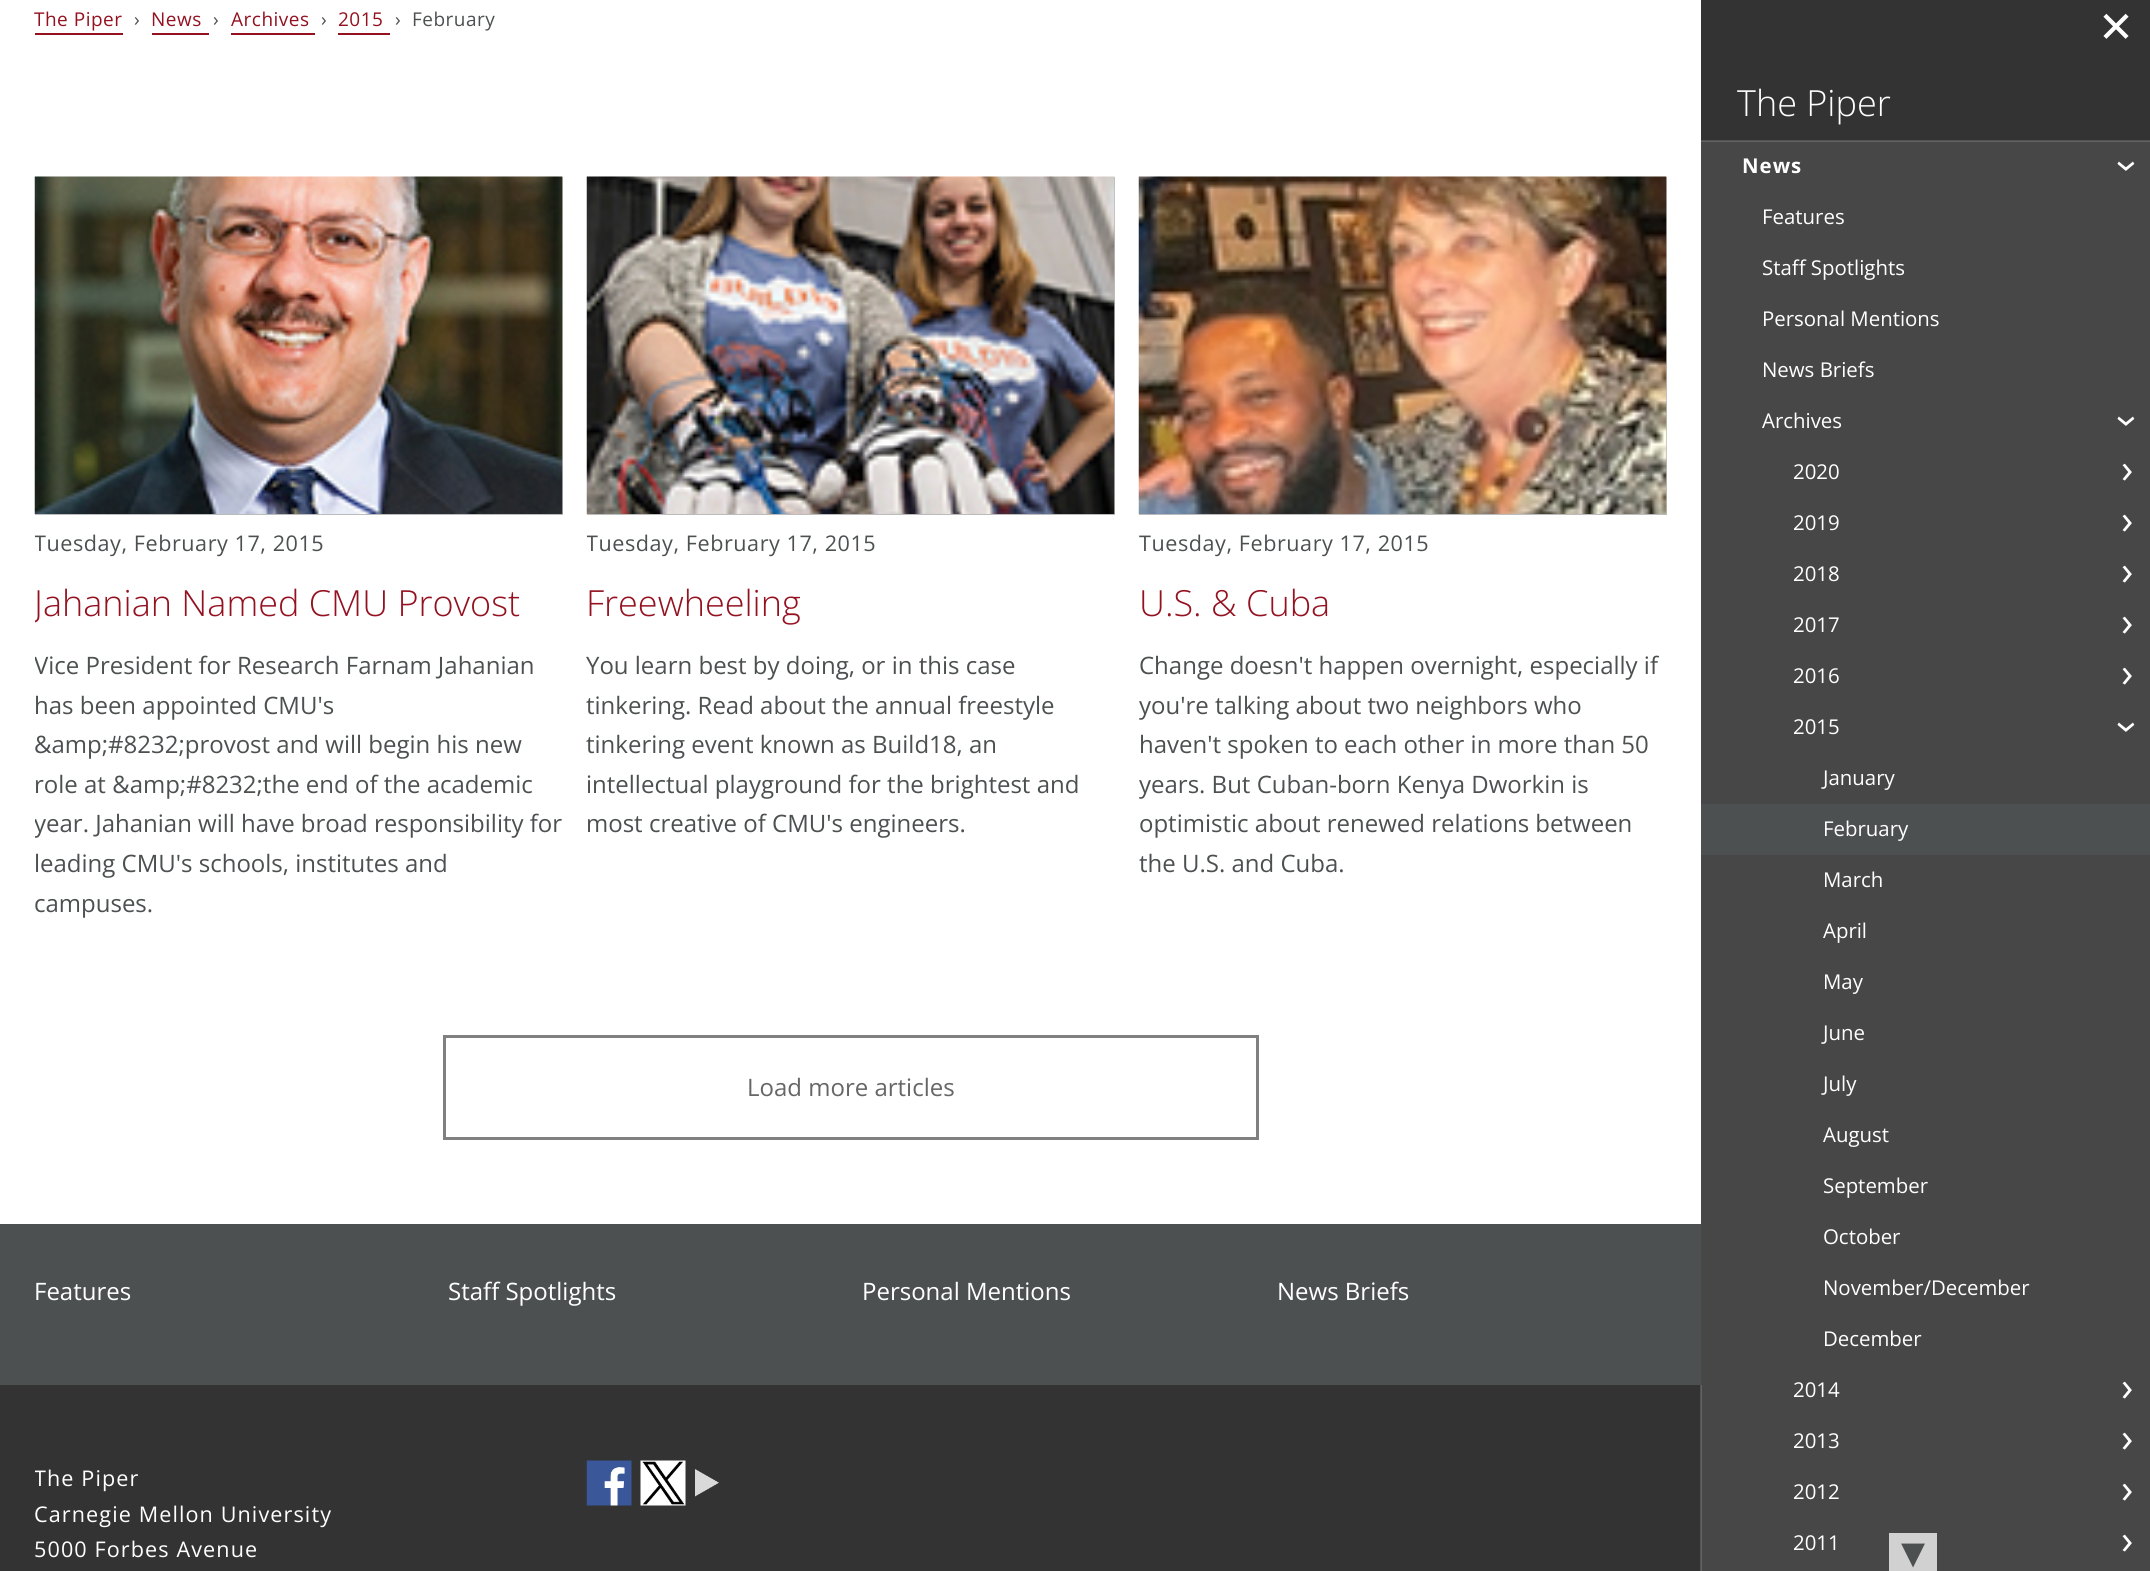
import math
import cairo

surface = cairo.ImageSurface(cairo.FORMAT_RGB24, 2150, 1571)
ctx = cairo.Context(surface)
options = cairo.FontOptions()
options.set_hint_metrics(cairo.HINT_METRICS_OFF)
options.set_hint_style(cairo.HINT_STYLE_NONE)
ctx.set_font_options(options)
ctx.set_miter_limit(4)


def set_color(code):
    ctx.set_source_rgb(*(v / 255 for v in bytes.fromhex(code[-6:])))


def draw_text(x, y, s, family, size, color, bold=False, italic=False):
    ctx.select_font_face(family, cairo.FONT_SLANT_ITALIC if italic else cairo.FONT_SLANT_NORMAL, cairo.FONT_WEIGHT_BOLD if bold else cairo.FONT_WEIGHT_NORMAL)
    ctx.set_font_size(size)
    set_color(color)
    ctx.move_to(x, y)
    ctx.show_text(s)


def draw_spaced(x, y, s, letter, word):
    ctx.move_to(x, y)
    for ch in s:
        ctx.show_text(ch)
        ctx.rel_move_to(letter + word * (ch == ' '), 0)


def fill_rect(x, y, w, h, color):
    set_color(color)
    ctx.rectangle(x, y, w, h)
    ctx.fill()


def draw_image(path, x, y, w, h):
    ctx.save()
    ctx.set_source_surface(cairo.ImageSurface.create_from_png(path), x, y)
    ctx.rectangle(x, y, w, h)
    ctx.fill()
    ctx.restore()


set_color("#ffffff")
ctx.paint()
ctx.select_font_face("Open Sans")
ctx.set_font_size(19)
set_color("#941120")
draw_spaced(34, 26, "The Piper", 0.5, 0)
fill_rect(35, 33, 88, 2, "#941120")
set_color("#4d5051")
draw_spaced(134, 26, "›", 0.5, 0)
set_color("#941120")
draw_spaced(151, 26, "News", 0.5, 0)
fill_rect(152, 33, 57, 2, "#941120")
set_color("#4d5051")
draw_spaced(213, 26, "›", 0.5, 0)
set_color("#941120")
draw_spaced(231, 26, "Archives", 0.5, 0)
fill_rect(231, 33, 84, 2, "#941120")
set_color("#4d5051")
draw_spaced(321, 26, "›", 0.5, 0)
set_color("#941120")
draw_spaced(338, 26, "2015", 0.5, 0)
fill_rect(338, 33, 52, 2, "#941120")
set_color("#4d5051")
draw_spaced(395, 26, "›", 0.5, 0)
draw_spaced(412, 26, "February", 0.5, 0)
fill_rect(35, 177, 528, 338, "#bbbbbb")
draw_image("assets/img1.png", 34, 176, 529, 338)
ctx.save()
ctx.rectangle(35, 141, 528, 834)
ctx.clip()
ctx.set_font_size(21.6)
set_color("#4d5051")
draw_spaced(34, 551, "Tuesday, February 17, 2015", 0.55, 0)
draw_text(34, 616, "Jahanian Named CMU Provost", "Open Sans Light", 36, "#941120")
draw_text(34, 674, "Vice President for Research Farnam Jahanian", "Open Sans", 24, "#4d5051")
ctx.restore()
draw_text(34, 714, "has been appointed CMU's", "Open Sans", 24, "#4d5051")
draw_text(34, 753, "&amp;#8232;provost and will begin his new", "Open Sans", 24, "#4d5051")
draw_text(34, 793, "role at &amp;#8232;the end of the academic", "Open Sans", 24, "#4d5051")
ctx.save()
ctx.rectangle(35, 141, 528, 834)
ctx.clip()
draw_text(34, 832, "year. Jahanian will have broad responsibility for", "Open Sans", 24, "#4d5051")
ctx.restore()
draw_text(34, 872, "leading CMU's schools, institutes and", "Open Sans", 24, "#4d5051")
draw_text(34, 912, "campuses.", "Open Sans", 24, "#4d5051")
fill_rect(587, 177, 528, 338, "#bbbbbb")
draw_image("assets/img2.png", 586, 176, 529, 338)
ctx.save()
ctx.rectangle(587, 141, 528, 834)
ctx.clip()
ctx.set_font_size(21.6)
set_color("#4d5051")
draw_spaced(586, 551, "Tuesday, February 17, 2015", 0.55, 0)
ctx.restore()
draw_text(586, 616, "Freewheeling", "Open Sans Light", 36, "#941120")
draw_text(586, 674, "You learn best by doing, or in this case", "Open Sans", 24, "#4d5051")
draw_text(586, 714, "tinkering. Read about the annual freestyle", "Open Sans", 24, "#4d5051")
draw_text(586, 753, "tinkering event known as Build18, an", "Open Sans", 24, "#4d5051")
draw_text(586, 793, "intellectual playground for the brightest and", "Open Sans", 24, "#4d5051")
draw_text(586, 832, "most creative of CMU's engineers.", "Open Sans", 24, "#4d5051")
fill_rect(1139, 177, 528, 338, "#bbbbbb")
draw_image("assets/img3.png", 1138, 176, 529, 338)
ctx.set_font_size(21.6)
set_color("#4d5051")
draw_spaced(1139, 551, "Tuesday, February 17, 2015", 0.55, 0)
draw_text(1139, 616, "U.S. & Cuba", "Open Sans Light", 36, "#941120")
draw_text(1139, 674, "Change doesn't happen overnight, especially if", "Open Sans", 24, "#4d5051")
ctx.save()
ctx.rectangle(1139, 141, 528, 834)
ctx.clip()
draw_text(1139, 714, "you're talking about two neighbors who", "Open Sans", 24, "#4d5051")
ctx.restore()
draw_text(1139, 753, "haven't spoken to each other in more than 50", "Open Sans", 24, "#4d5051")
ctx.save()
ctx.rectangle(1139, 141, 528, 834)
ctx.clip()
draw_text(1139, 793, "years. But Cuban-born Kenya Dworkin is", "Open Sans", 24, "#4d5051")
ctx.restore()
draw_text(1139, 832, "optimistic about renewed relations between", "Open Sans", 24, "#4d5051")
draw_text(1139, 872, "the U.S. and Cuba.", "Open Sans", 24, "#4d5051")
ctx.rectangle(444.5, 1036.5, 813, 102)
set_color("#808080")
ctx.set_line_width(3)
ctx.stroke()
draw_text(747, 1096, "Load more articles", "Open Sans", 24, "#666666")
fill_rect(0, 1224, 1701, 161, "#4d5051")
draw_text(34, 1300, "Features", "Open Sans", 24, "#ffffff")
draw_text(448, 1300, "Staff Spotlights", "Open Sans", 24, "#ffffff")
draw_text(862, 1300, "Personal Mentions", "Open Sans", 24, "#ffffff")
draw_text(1277, 1300, "News Briefs", "Open Sans", 24, "#ffffff")
fill_rect(0, 1385, 1700, 186, "#333333")
fill_rect(1700, 1385, 1, 186, "#525252")
ctx.save()
ctx.rectangle(35, 1428, 528, 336)
ctx.clip()
ctx.set_font_size(21.6)
set_color("#ffffff")
draw_spaced(34, 1486, "The Piper", 1.1, 0)
ctx.restore()
ctx.set_font_size(21.6)
set_color("#ffffff")
draw_spaced(34, 1522, "Carnegie Mellon University", 1.1, 0)
draw_spaced(34, 1557, "5000 Forbes Avenue", 1.1, 0)
draw_image("assets/img4.png", 586, 1460, 46, 46)
draw_image("assets/img5.png", 640, 1460, 46, 46)
draw_image("assets/img6.png", 695, 1469, 24, 28)
fill_rect(1701, 0, 449, 140, "#333333")
draw_text(2098, 42, "✕", "DejaVu Sans", 43, "#ffffff")
fill_rect(1701, 142, 449, 1429, "#474747")
fill_rect(1701, 1385, 1, 186, "#636363")
draw_text(1737, 116, "The Piper", "Open Sans Light", 36, "#ffffff")
fill_rect(1701, 140, 449, 1, "#525252")
fill_rect(1701, 141, 449, 1, "#636363")
ctx.select_font_face("Open Sans", cairo.FONT_SLANT_NORMAL, cairo.FONT_WEIGHT_BOLD)
ctx.set_font_size(20.4)
set_color("#ffffff")
draw_spaced(1742, 173, "News", 1, 0)
ctx.select_font_face("Open Sans")
ctx.set_font_size(41)
ctx.save()
ctx.translate(2115, 160)
ctx.rotate(90 * math.pi / 180)
draw_spaced(0, 0, "›", 2, 0)
ctx.restore()
draw_text(1762, 224, "Features", "Open Sans", 20.4, "#ffffff")
draw_text(1762, 275, "Staff Spotlights", "Open Sans", 20.4, "#ffffff")
draw_text(1762, 326, "Personal Mentions", "Open Sans", 20.4, "#ffffff")
draw_text(1762, 377, "News Briefs", "Open Sans", 20.4, "#ffffff")
draw_text(1762, 428, "Archives", "Open Sans", 20.4, "#ffffff")
ctx.save()
ctx.translate(2115, 415)
ctx.rotate(90 * math.pi / 180)
draw_text(0, 0, "›", "Open Sans", 41, "#ffffff")
ctx.restore()
draw_text(1793, 479, "2020", "Open Sans", 20.4, "#ffffff")
draw_text(2121, 483, "›", "Open Sans", 41, "#ffffff")
draw_text(1793, 530, "2019", "Open Sans", 20.4, "#ffffff")
draw_text(2121, 534, "›", "Open Sans", 41, "#ffffff")
draw_text(1793, 581, "2018", "Open Sans", 20.4, "#ffffff")
draw_text(2121, 585, "›", "Open Sans", 41, "#ffffff")
draw_text(1793, 632, "2017", "Open Sans", 20.4, "#ffffff")
draw_text(2121, 636, "›", "Open Sans", 41, "#ffffff")
draw_text(1793, 683, "2016", "Open Sans", 20.4, "#ffffff")
draw_text(2121, 687, "›", "Open Sans", 41, "#ffffff")
draw_text(1793, 734, "2015", "Open Sans", 20.4, "#ffffff")
ctx.save()
ctx.translate(2115, 721)
ctx.rotate(90 * math.pi / 180)
draw_text(0, 0, "›", "Open Sans", 41, "#ffffff")
ctx.restore()
draw_text(1823, 785, "January", "Open Sans", 20.4, "#ffffff")
fill_rect(1701, 804, 449, 51, "#4d5051")
draw_text(1823, 836, "February", "Open Sans", 20.4, "#ffffff")
draw_text(1823, 887, "March", "Open Sans", 20.4, "#ffffff")
draw_text(1823, 938, "April", "Open Sans", 20.4, "#ffffff")
draw_text(1823, 989, "May", "Open Sans", 20.4, "#ffffff")
draw_text(1823, 1040, "June", "Open Sans", 20.4, "#ffffff")
draw_text(1823, 1091, "July", "Open Sans", 20.4, "#ffffff")
draw_text(1823, 1142, "August", "Open Sans", 20.4, "#ffffff")
draw_text(1823, 1193, "September", "Open Sans", 20.4, "#ffffff")
draw_text(1823, 1244, "October", "Open Sans", 20.4, "#ffffff")
draw_text(1823, 1295, "November/December", "Open Sans", 20.4, "#ffffff")
draw_text(1823, 1346, "December", "Open Sans", 20.4, "#ffffff")
draw_text(1793, 1397, "2014", "Open Sans", 20.4, "#ffffff")
draw_text(2121, 1401, "›", "Open Sans", 41, "#ffffff")
draw_text(1793, 1448, "2013", "Open Sans", 20.4, "#ffffff")
draw_text(2121, 1452, "›", "Open Sans", 41, "#ffffff")
draw_text(1793, 1499, "2012", "Open Sans", 20.4, "#ffffff")
draw_text(2121, 1503, "›", "Open Sans", 41, "#ffffff")
draw_text(1793, 1550, "2011", "Open Sans", 20.4, "#ffffff")
draw_text(2121, 1554, "›", "Open Sans", 41, "#ffffff")
fill_rect(1889, 1533, 48, 38, "#d1d1d1")
draw_text(1901, 1568, "▾", "DejaVu Sans", 48, "#4d5051")
surface.write_to_png("output.png")
